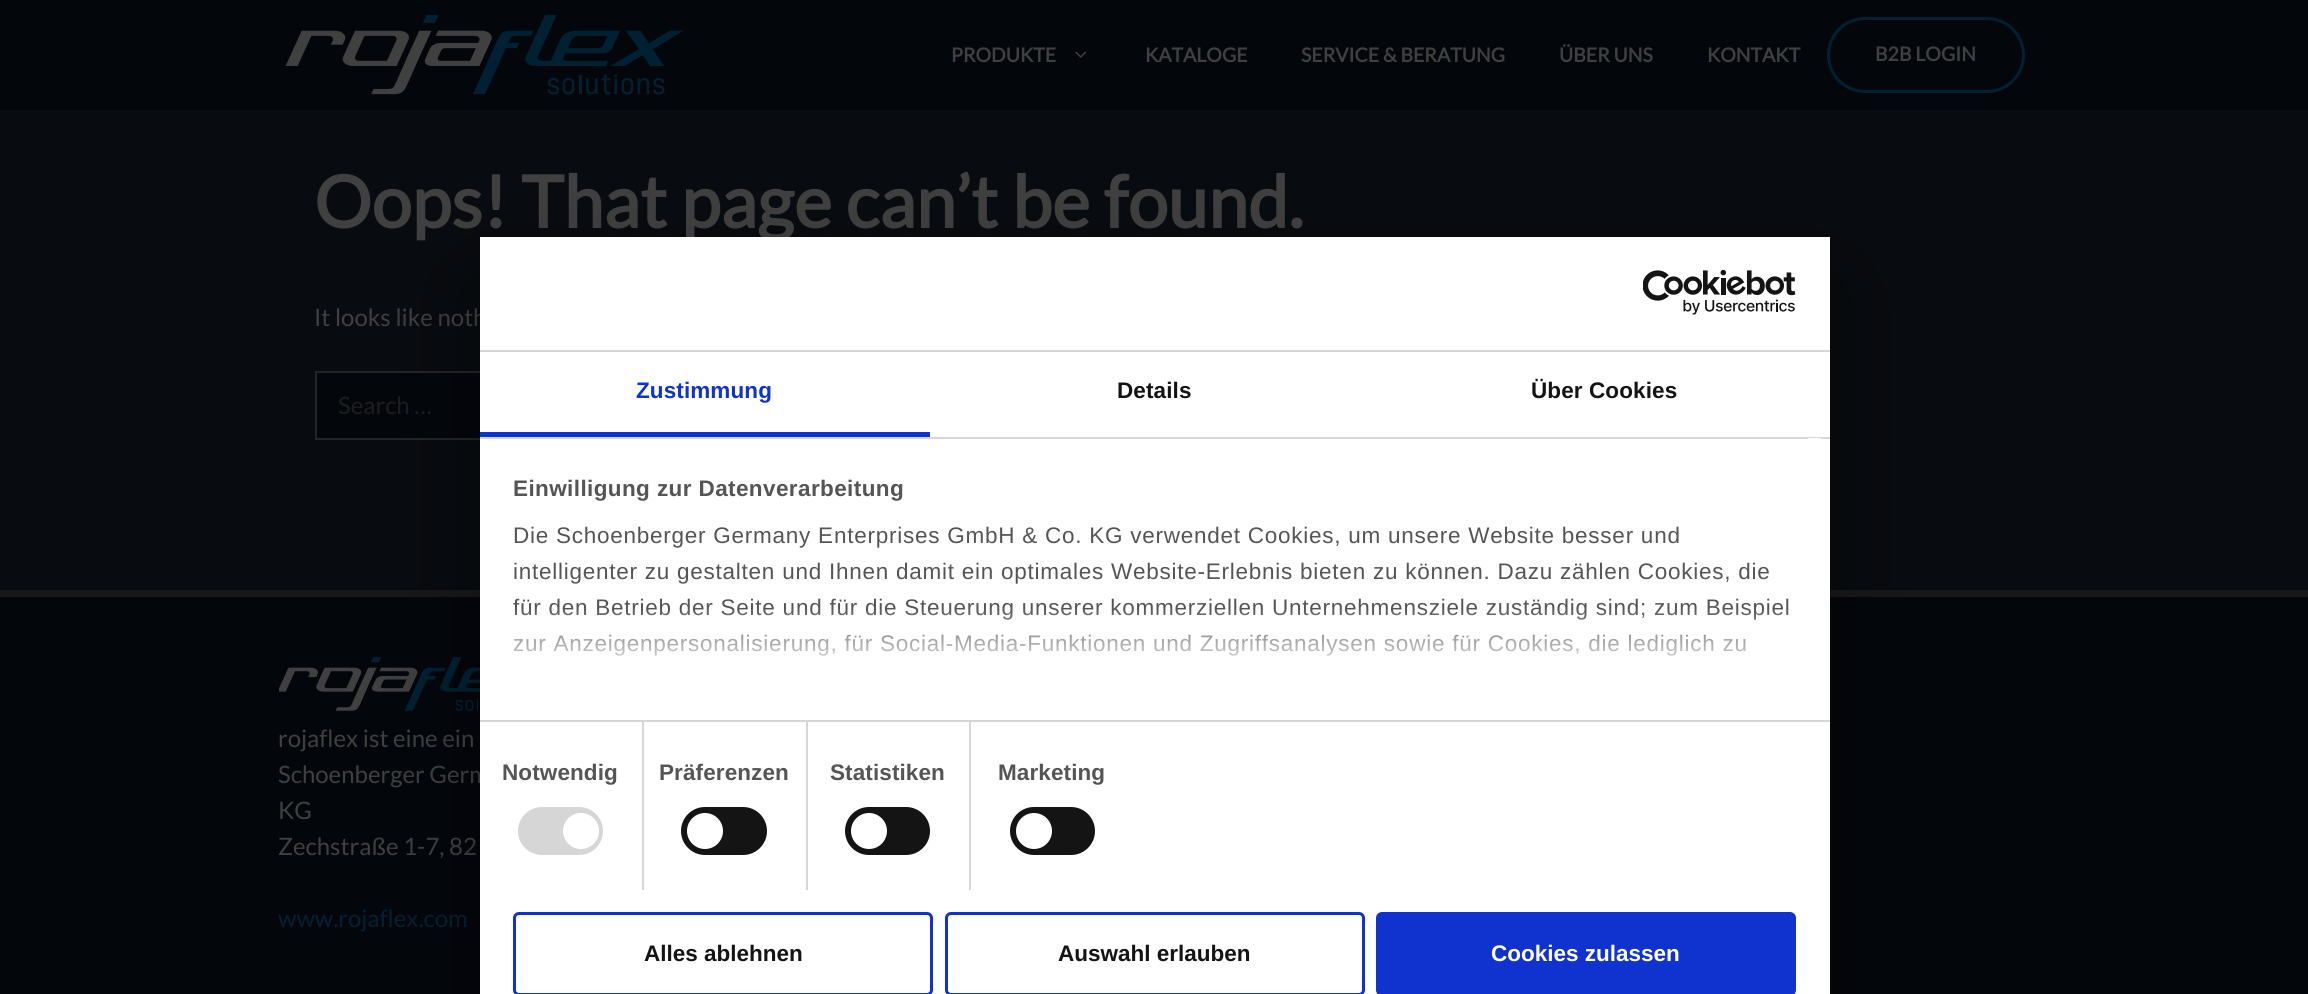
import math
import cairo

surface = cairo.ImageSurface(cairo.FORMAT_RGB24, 2308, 994)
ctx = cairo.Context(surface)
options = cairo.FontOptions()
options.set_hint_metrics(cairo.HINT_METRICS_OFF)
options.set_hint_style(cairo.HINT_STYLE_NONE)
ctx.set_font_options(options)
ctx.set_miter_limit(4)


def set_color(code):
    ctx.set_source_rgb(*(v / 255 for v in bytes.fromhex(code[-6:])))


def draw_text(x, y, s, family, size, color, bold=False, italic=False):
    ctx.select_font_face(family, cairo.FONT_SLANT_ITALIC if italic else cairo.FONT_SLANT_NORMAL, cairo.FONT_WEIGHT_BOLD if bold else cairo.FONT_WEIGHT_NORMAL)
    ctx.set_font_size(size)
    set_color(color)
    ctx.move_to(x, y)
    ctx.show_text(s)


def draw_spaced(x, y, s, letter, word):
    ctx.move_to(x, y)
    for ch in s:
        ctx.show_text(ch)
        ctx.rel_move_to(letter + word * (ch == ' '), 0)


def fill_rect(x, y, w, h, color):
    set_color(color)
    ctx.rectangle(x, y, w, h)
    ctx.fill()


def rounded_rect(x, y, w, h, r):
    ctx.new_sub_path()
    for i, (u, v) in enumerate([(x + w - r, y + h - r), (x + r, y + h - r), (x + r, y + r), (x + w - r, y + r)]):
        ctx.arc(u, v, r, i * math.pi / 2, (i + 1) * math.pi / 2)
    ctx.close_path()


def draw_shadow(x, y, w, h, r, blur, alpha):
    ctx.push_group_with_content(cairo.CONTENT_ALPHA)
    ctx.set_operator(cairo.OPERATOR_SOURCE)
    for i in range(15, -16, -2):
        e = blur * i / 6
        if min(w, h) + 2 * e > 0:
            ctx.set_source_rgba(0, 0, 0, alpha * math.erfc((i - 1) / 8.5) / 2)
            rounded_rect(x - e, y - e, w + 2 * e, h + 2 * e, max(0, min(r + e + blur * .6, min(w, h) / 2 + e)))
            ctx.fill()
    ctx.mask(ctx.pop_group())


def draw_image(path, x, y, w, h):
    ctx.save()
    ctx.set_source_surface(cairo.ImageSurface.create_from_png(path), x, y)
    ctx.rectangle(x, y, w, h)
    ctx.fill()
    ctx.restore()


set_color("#080b0f")
ctx.paint()
fill_rect(0, 0, 2308, 110, "#03060b")
draw_image("assets/img1.png", 285, 15, 399, 80)
draw_text(951, 62, "PRODUKTE", "Lato", 19.5, "#404040", bold=True)
draw_image("assets/img2.png", 1075, 51, 12, 7)
draw_text(1145, 62, "KATALOGE", "Lato", 19.5, "#404040", bold=True)
draw_text(1301, 62, "SERVICE & BERATUNG", "Lato", 19.5, "#404040", bold=True)
draw_text(1559, 62, "ÜBER UNS", "Lato", 19.5, "#404040", bold=True)
draw_text(1707, 62, "KONTAKT", "Lato", 19.5, "#404040", bold=True)
rounded_rect(1828.5, 18.5, 195, 73, 36.5)
set_color("#002133")
ctx.set_line_width(3)
ctx.stroke()
draw_text(1875, 61, "B2B LOGIN", "Lato", 19.5, "#404040", bold=True)
draw_text(314, 228, "Oops! That page can’t be found.", "Lato", 72, "#404040", bold=True)
draw_text(314, 326, "It looks like noth", "Lato", 24, "#404040")
fill_rect(317, 373, 163, 65, "#03060b")
ctx.rectangle(316, 372, 313, 67)
set_color("#252525")
ctx.set_line_width(2)
ctx.stroke()
draw_text(338, 414, "Search …", "Lato", 24, "#1d1d1d")
fill_rect(0, 597, 2308, 397, "#03060b")
fill_rect(0, 590, 2308, 7, "#181818")
draw_image("assets/img3.png", 279, 657, 201, 54)
draw_text(278, 747, "rojaflex ist eine ein", "Lato", 24, "#404040")
draw_text(278, 783, "Schoenberger Germ", "Lato", 24, "#404040")
draw_text(278, 819, "KG", "Lato", 24, "#404040")
draw_text(278, 855, "Zechstraße 1-7, 82", "Lato", 24, "#404040")
draw_text(278, 927, "www.rojaflex.com", "Lato", 24, "#002133")
set_color("#000000")
draw_shadow(480, 285, 1350, 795, 0, 51, 0.3)
fill_rect(480, 237, 1350, 757, "#ffffff")
fill_rect(480, 350, 1350, 2, "#d6d6d6")
draw_image("assets/img4.png", 1643, 270, 153, 45)
fill_rect(480, 437, 1350, 2, "#d6d6d6")
fill_rect(480, 432, 450, 5, "#1032cf")
ctx.select_font_face("Liberation Sans", cairo.FONT_SLANT_NORMAL, cairo.FONT_WEIGHT_BOLD)
ctx.set_font_size(22.5)
draw_spaced(636, 398, "Zustimmung", 0.1, 0)
set_color("#141414")
draw_spaced(1117, 398, "Details", 0.1, 0)
draw_spaced(1531, 398, "Über Cookies", 0.1, 0)
fill_rect(480, 720, 1350, 2, "#d6d6d6")
fill_rect(1808, 438, 13, 1, "#ffffff")
set_color("#555555")
draw_spaced(513, 496, "Einwilligung zur Datenverarbeitung", 0.4, 0)
ctx.select_font_face("Liberation Sans")
draw_spaced(513, 543, "Die Schoenberger Germany Enterprises GmbH & Co. KG verwendet Cookies, um unsere Website besser und", 0.75, 0)
draw_spaced(513, 579, "intelligenter zu gestalten und Ihnen damit ein optimales Website-Erlebnis bieten zu können. Dazu zählen Cookies, die", 0.75, 0)
draw_spaced(513, 615, "für den Betrieb der Seite und für die Steuerung unserer kommerziellen Unternehmensziele zuständig sind; zum Beispiel", 0.75, 0)
draw_spaced(513, 651, "zur Anzeigenpersonalisierung, für Social-Media-Funktionen und Zugriffsanalysen sowie für Cookies, die lediglich zu", 0.75, 0)
gradient = cairo.LinearGradient(1139, 720, 1139, 607)
gradient.add_color_stop_rgba(0, 1, 1, 1, 1)
gradient.add_color_stop_rgba(0.5, 1, 1, 1, 0.8)
gradient.add_color_stop_rgba(1, 1, 1, 1, 0)
ctx.set_source(gradient)
ctx.rectangle(513, 609, 1276, 47)
ctx.fill()
fill_rect(642, 722, 2, 168, "#d6d6d6")
ctx.select_font_face("Liberation Sans", cairo.FONT_SLANT_NORMAL, cairo.FONT_WEIGHT_BOLD)
set_color("#555555")
draw_spaced(502, 780, "Notwendig", 0.1, 0)
set_color("#d6d6d6")
rounded_rect(518, 807, 85, 48, 24)
ctx.fill()
set_color("#ffffff")
ctx.arc(581, 831, 18, 0, 2 * math.pi)
ctx.fill()
fill_rect(806, 722, 2, 168, "#d6d6d6")
set_color("#555555")
draw_spaced(659, 780, "Präferenzen", 0.1, 0)
set_color("#141414")
rounded_rect(681, 807, 86, 48, 24)
ctx.fill()
set_color("#ffffff")
ctx.arc(705, 831, 18, 0, 2 * math.pi)
ctx.fill()
fill_rect(969, 722, 2, 168, "#d6d6d6")
set_color("#555555")
draw_spaced(830, 780, "Statistiken", 0.1, 0)
set_color("#141414")
rounded_rect(845, 807, 85, 48, 24)
ctx.fill()
set_color("#ffffff")
ctx.arc(869, 831, 18, 0, 2 * math.pi)
ctx.fill()
set_color("#555555")
draw_spaced(998, 780, "Marketing", 0.1, 0)
set_color("#141414")
rounded_rect(1010, 807, 85, 48, 24)
ctx.fill()
set_color("#ffffff")
ctx.arc(1034, 831, 18, 0, 2 * math.pi)
ctx.fill()
rounded_rect(514.5, 913.5, 417, 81, 4.5)
set_color("#1032cf")
ctx.set_line_width(3)
ctx.stroke()
draw_text(644, 961, "Alles ablehnen", "Liberation Sans", 22.5, "#141414", bold=True)
rounded_rect(946.5, 913.5, 417, 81, 4.5)
set_color("#1032cf")
ctx.stroke()
draw_text(1058, 961, "Auswahl erlauben", "Liberation Sans", 22.5, "#141414", bold=True)
set_color("#1032cf")
rounded_rect(1377.5, 913.5, 417, 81, 4.5)
ctx.fill_preserve()
ctx.stroke()
draw_text(1491, 961, "Cookies zulassen", "Liberation Sans", 22.5, "#ffffff", bold=True)
surface.write_to_png("output.png")
